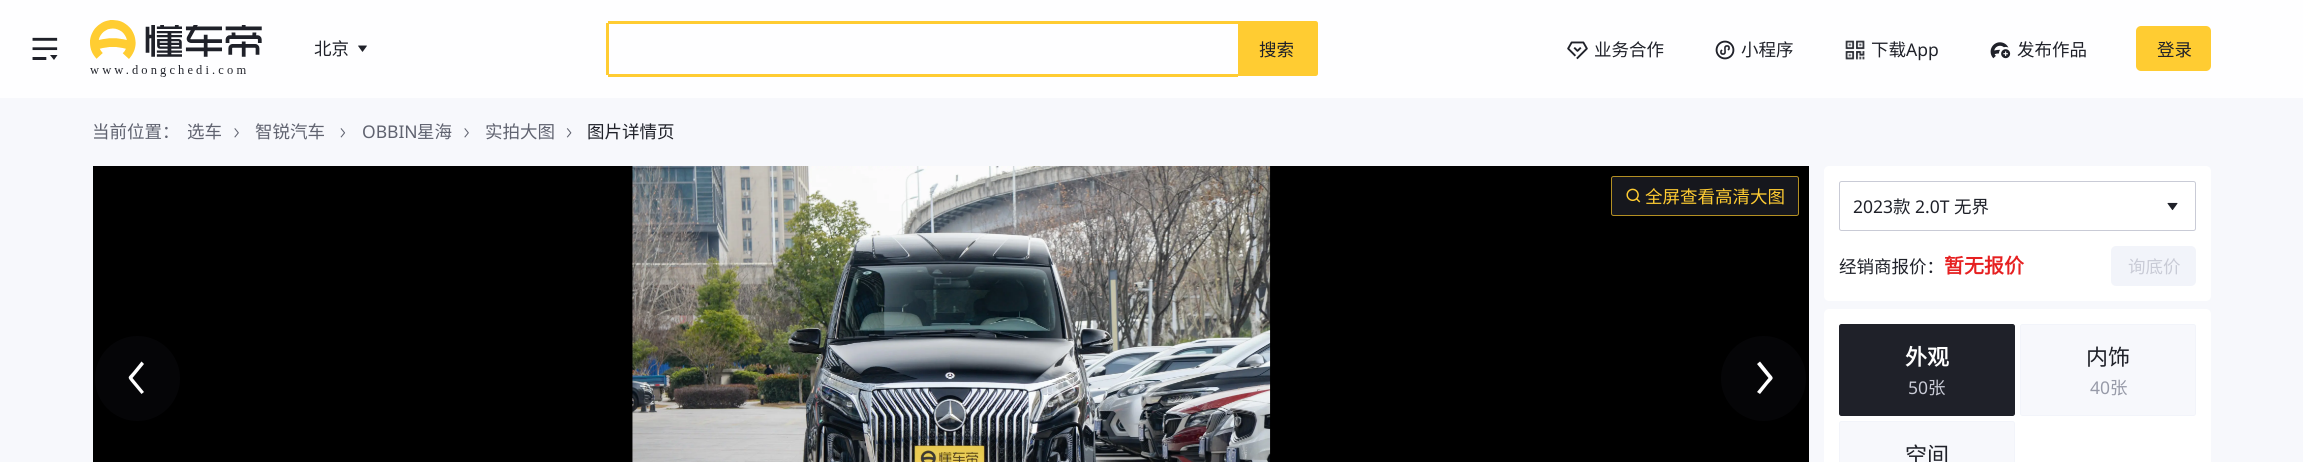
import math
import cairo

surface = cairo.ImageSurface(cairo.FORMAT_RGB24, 2303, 462)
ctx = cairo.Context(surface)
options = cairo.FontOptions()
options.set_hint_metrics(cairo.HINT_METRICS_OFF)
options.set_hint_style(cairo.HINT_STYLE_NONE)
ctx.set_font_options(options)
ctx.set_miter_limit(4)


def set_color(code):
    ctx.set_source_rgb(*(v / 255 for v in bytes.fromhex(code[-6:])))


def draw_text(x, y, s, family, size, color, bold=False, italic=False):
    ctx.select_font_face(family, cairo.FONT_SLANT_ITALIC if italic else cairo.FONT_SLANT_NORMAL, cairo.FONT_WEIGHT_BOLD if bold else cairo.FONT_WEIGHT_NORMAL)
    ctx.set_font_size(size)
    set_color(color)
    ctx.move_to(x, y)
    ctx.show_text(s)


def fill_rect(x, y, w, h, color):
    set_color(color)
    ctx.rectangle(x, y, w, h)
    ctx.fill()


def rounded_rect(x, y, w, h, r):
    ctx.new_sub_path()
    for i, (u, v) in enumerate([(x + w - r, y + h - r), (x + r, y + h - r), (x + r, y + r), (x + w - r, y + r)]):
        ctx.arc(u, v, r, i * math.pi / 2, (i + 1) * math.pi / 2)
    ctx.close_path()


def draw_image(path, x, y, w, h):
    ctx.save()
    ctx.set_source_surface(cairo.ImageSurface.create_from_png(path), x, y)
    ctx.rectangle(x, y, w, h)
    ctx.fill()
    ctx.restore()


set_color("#f7f8fc")
ctx.paint()
fill_rect(0, 0, 2303, 98, "#fefeff")
draw_image("assets/img1.png", 32, 37, 26, 23)
set_color("#1f2129")
ctx.new_path()
ctx.move_to(50, 55)
ctx.line_to(57.5, 55)
ctx.line_to(54, 60)
ctx.close_path()
ctx.fill()
draw_image("assets/img2.png", 90, 20, 172, 57)
draw_text(314, 55, "北京", "Noto Sans CJK SC", 17.5, "#1f2129")
draw_image("assets/img3.png", 358, 45, 9, 7)
fill_rect(608, 21, 630, 3, "#ffcc32")
fill_rect(608, 74, 630, 3, "#ffcc32")
fill_rect(606, 23, 3, 52, "#ffcc32")
ctx.new_path()
ctx.move_to(1238, 21)
ctx.line_to(1315.5, 21)
ctx.curve_to(1317, 21, 1318, 22, 1318, 23.5)
ctx.line_to(1318, 73.5)
ctx.curve_to(1318, 75, 1317, 76, 1315.5, 76)
ctx.line_to(1238, 76)
ctx.close_path()
ctx.fill()
draw_text(1259, 56, "搜索", "Noto Sans CJK SC", 17.5, "#1f2129")
draw_image("assets/img4.png", 1567, 41, 21, 19)
draw_text(1594, 56, "业务合作", "Noto Sans CJK SC", 17.5, "#1f2129")
draw_image("assets/img5.png", 1715, 40, 20, 20)
draw_text(1741, 56, "小程序", "Noto Sans CJK SC", 17.5, "#1f2129")
draw_image("assets/img6.png", 1845, 40, 20, 20)
draw_text(1871, 56, "下载", "Noto Sans CJK SC", 17.5, "#1f2129")
draw_text(1906, 56, "App", "Noto Sans", 17.5, "#1f2129")
draw_image("assets/img7.png", 1990, 42, 21, 17)
draw_text(2017, 56, "发布作品", "Noto Sans CJK SC", 17.5, "#1f2129")
set_color("#ffcc32")
rounded_rect(2136, 26, 75, 45, 5)
ctx.fill()
draw_text(2157, 56, "登录", "Noto Sans CJK SC", 17.5, "#1f2129")
draw_text(92, 138, "当前位置：", "Noto Sans CJK SC", 17.5, "#606370")
draw_text(187, 138, "选车", "Noto Sans CJK SC", 17.5, "#606370")
draw_image("assets/img8.png", 234, 128, 5, 10)
draw_text(255, 138, "智锐汽车", "Noto Sans CJK SC", 17.5, "#606370")
draw_image("assets/img9.png", 340, 128, 6, 10)
draw_text(362, 138, "OBBIN", "Noto Sans", 17.5, "#606370")
draw_text(417, 138, "星海", "Noto Sans CJK SC", 17.5, "#606370")
draw_image("assets/img8.png", 464, 128, 5, 10)
draw_text(485, 138, "实拍大图", "Noto Sans CJK SC", 17.5, "#606370")
draw_image("assets/img10.png", 566, 128, 6, 10)
draw_text(587, 138, "图片详情页", "Noto Sans CJK SC", 17.5, "#1f2129")
fill_rect(93, 166, 1716, 296, "#000000")
draw_image("assets/img11.png", 632, 166, 639, 296)
set_color("#16171d")
rounded_rect(1611.5, 176.5, 187, 39, 2)
ctx.fill_preserve()
set_color("#b38f23")
ctx.set_line_width(1)
ctx.stroke()
draw_image("assets/img12.png", 1626, 188, 15, 15)
draw_text(1645, 203, "全屏查看高清大图", "Noto Sans CJK SC", 17.5, "#ffcc32")
set_color("#050507")
ctx.new_path()
ctx.arc(137.5, 378.5, 42.5, 0, 2 * math.pi)
ctx.fill()
set_color("#ffffff")
ctx.new_path()
ctx.move_to(141.5, 361.5)
ctx.line_to(144, 364)
ctx.line_to(132.5, 378)
ctx.line_to(144, 392)
ctx.line_to(141.5, 394)
ctx.line_to(131, 381.5)
ctx.curve_to(127, 376.5, 128.5, 377.5, 133, 372)
ctx.close_path()
ctx.fill()
set_color("#050507")
ctx.arc(1763.5, 378.5, 42.5, 0, 2 * math.pi)
ctx.fill()
set_color("#ffffff")
ctx.new_path()
ctx.move_to(1760, 361.5)
ctx.line_to(1770, 374)
ctx.curve_to(1774.5, 379, 1773, 378, 1768, 384)
ctx.line_to(1760, 394)
ctx.line_to(1757, 392)
ctx.line_to(1768.5, 378)
ctx.line_to(1757, 364)
ctx.close_path()
ctx.fill()
rounded_rect(1824, 166, 387, 135, 5)
ctx.fill()
rounded_rect(1839.5, 181.5, 356, 49, 2)
set_color("#c9cbd6")
ctx.stroke()
draw_text(1853, 213, "2023", "Noto Sans", 17.5, "#1f2129")
draw_text(1893, 213, "款", "Noto Sans CJK SC", 17.5, "#1f2129")
draw_text(1915, 213, "2.0T", "Noto Sans", 17.5, "#1f2129")
draw_text(1954, 213, "无界", "Noto Sans CJK SC", 17.5, "#1f2129")
draw_image("assets/img13.png", 2167, 202, 11, 9)
draw_text(1839, 273, "经销商报价：", "Noto Sans CJK SC", 17.5, "#1f2129")
draw_text(1944, 273, "暂无报价", "Noto Sans CJK SC", 20, "#e62021", bold=True)
set_color("#f2f4fa")
rounded_rect(2111, 246, 85, 40, 5)
ctx.fill()
draw_text(2128, 273, "询底价", "Noto Sans CJK SC", 17.5, "#c9cbd6")
set_color("#ffffff")
rounded_rect(1824, 309, 387, 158, 5)
ctx.fill()
set_color("#1f2129")
rounded_rect(1839.5, 324.5, 175, 91, 2)
ctx.fill_preserve()
ctx.stroke()
draw_text(1905, 365, "外观", "Noto Sans CJK SC", 22, "#ffffff", bold=True)
draw_text(1908, 394, "50", "Noto Sans", 17.5, "#c9cbd6")
draw_text(1928, 394, "张", "Noto Sans CJK SC", 17.5, "#c9cbd6")
set_color("#f7f8fc")
rounded_rect(2020.5, 324.5, 175, 91, 2)
ctx.fill_preserve()
set_color("#f2f4fa")
ctx.stroke()
draw_text(2086, 365, "内饰", "Noto Sans CJK SC", 22, "#1f2129")
draw_text(2090, 394, "40", "Noto Sans", 17.5, "#979aa8")
draw_text(2110, 394, "张", "Noto Sans CJK SC", 17.5, "#979aa8")
set_color("#f7f8fc")
rounded_rect(1839.5, 421.5, 175, 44, 2)
ctx.fill_preserve()
set_color("#f2f4fa")
ctx.stroke()
draw_text(1905, 463, "空间", "Noto Sans CJK SC", 22, "#1f2129")
surface.write_to_png("output.png")
